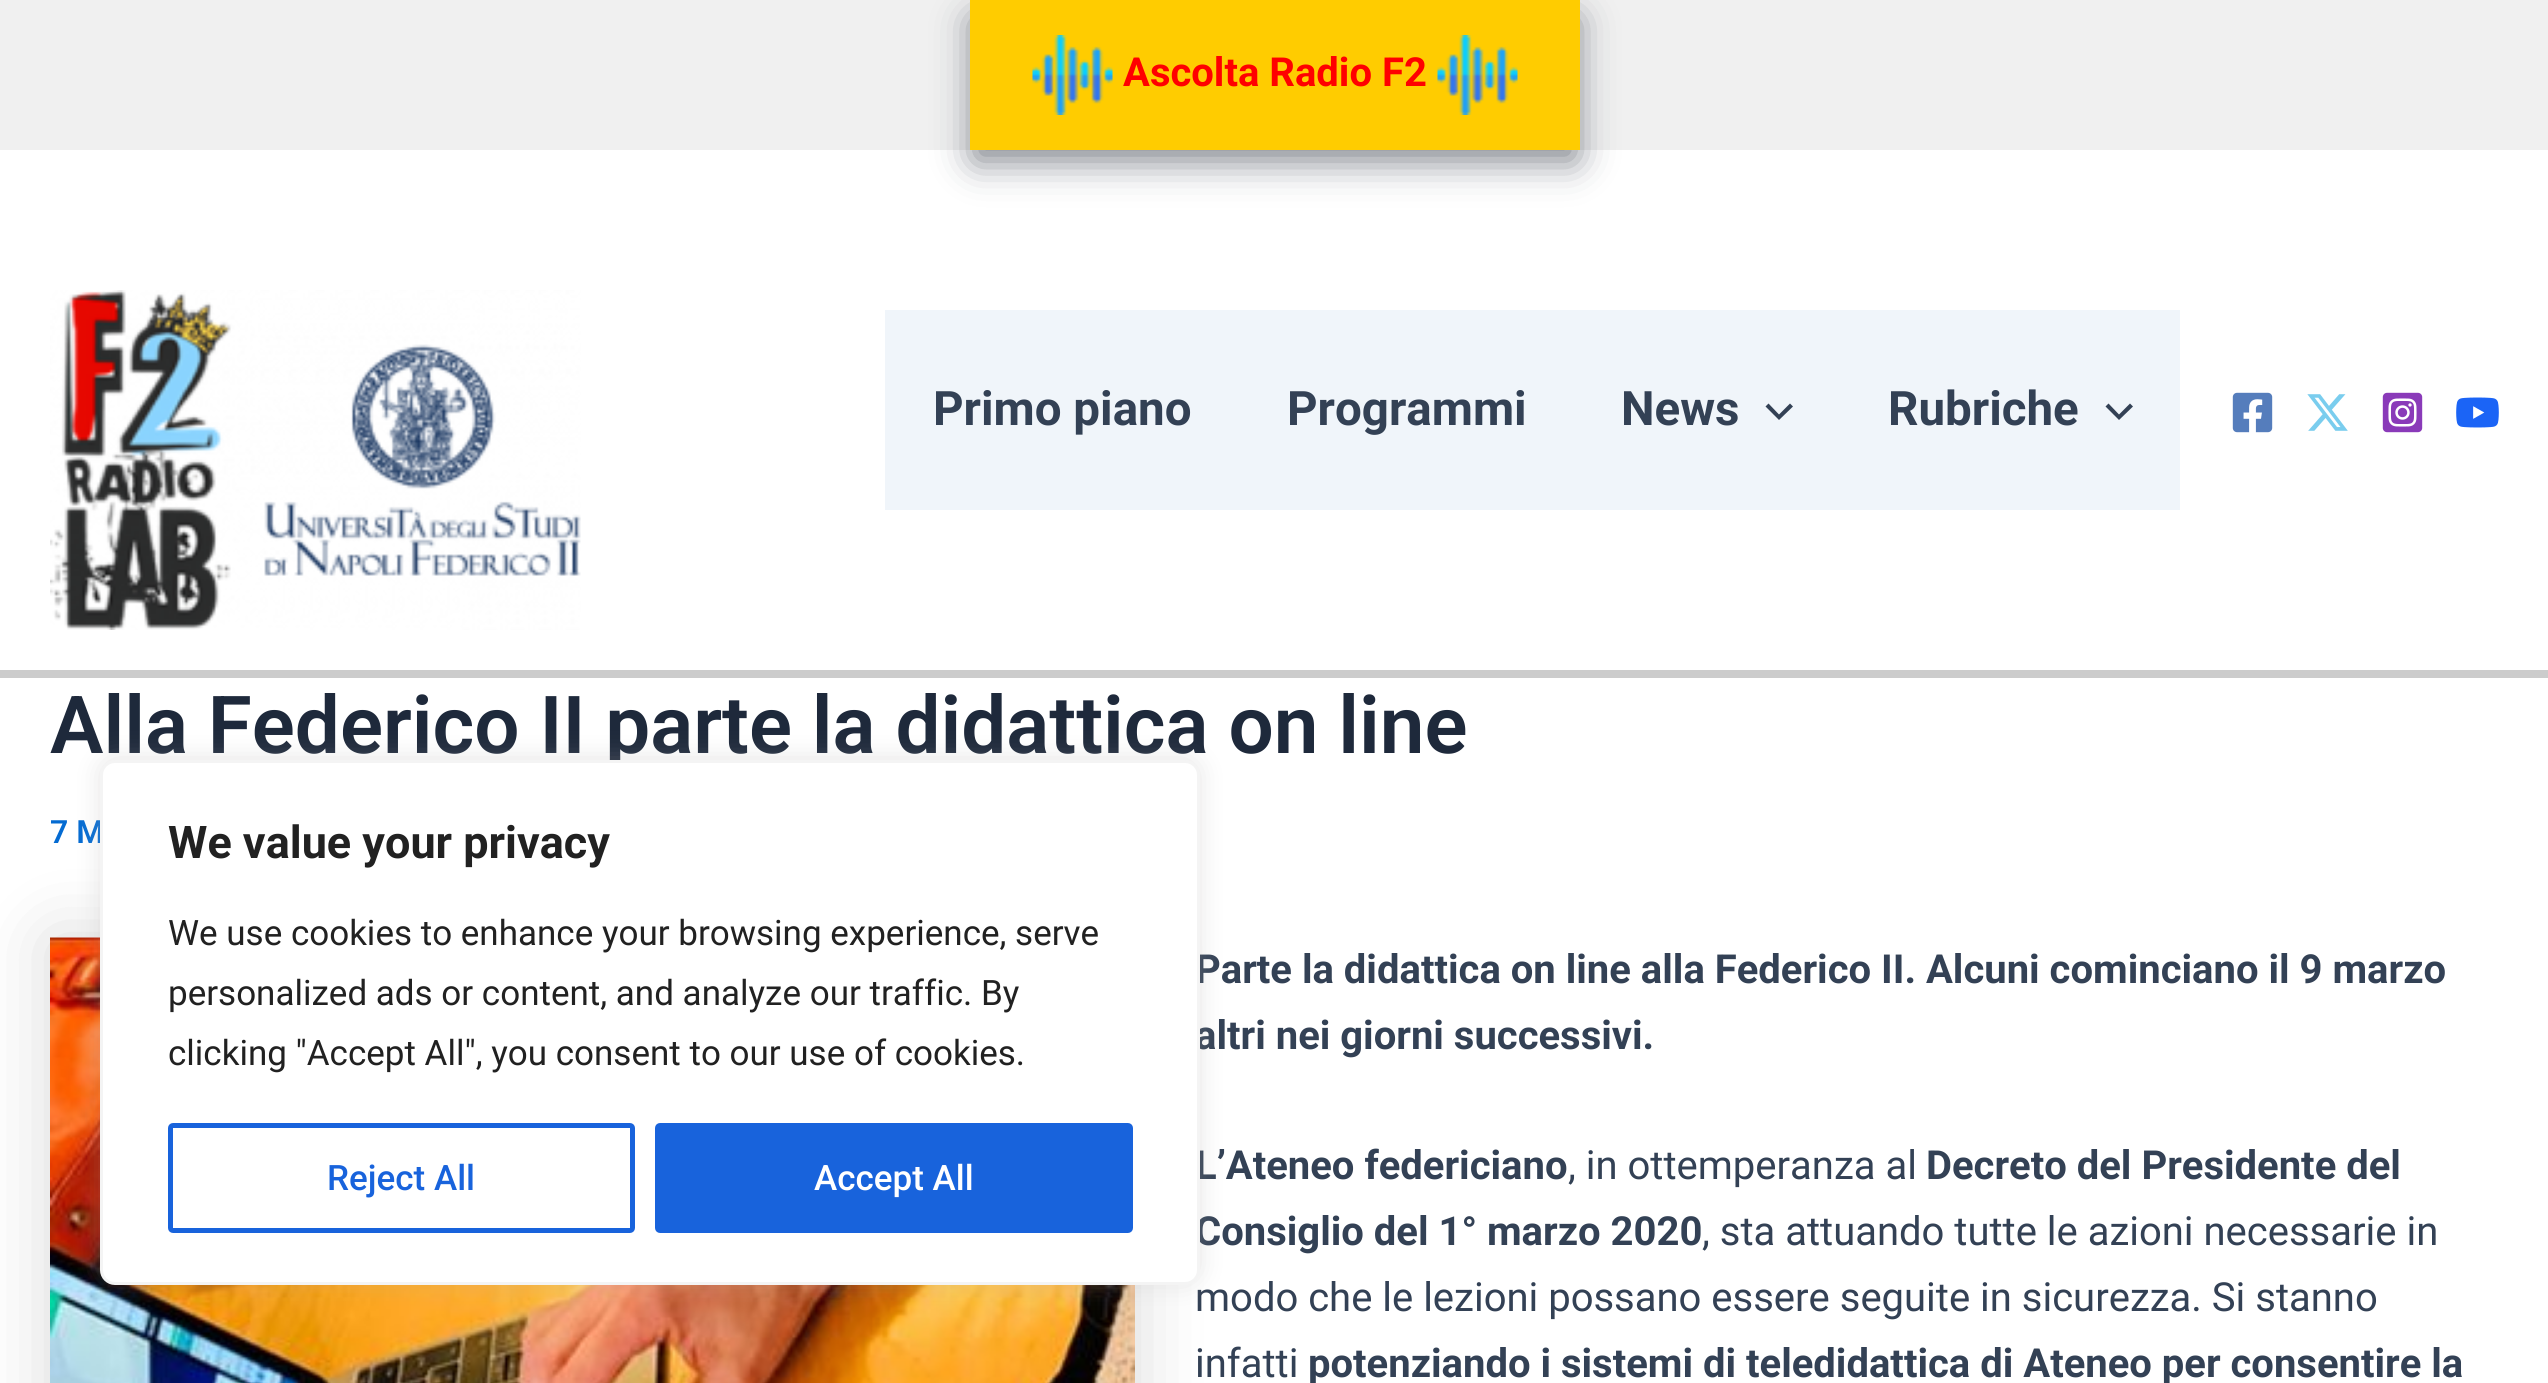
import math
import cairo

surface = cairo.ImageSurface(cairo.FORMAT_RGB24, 2548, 1383)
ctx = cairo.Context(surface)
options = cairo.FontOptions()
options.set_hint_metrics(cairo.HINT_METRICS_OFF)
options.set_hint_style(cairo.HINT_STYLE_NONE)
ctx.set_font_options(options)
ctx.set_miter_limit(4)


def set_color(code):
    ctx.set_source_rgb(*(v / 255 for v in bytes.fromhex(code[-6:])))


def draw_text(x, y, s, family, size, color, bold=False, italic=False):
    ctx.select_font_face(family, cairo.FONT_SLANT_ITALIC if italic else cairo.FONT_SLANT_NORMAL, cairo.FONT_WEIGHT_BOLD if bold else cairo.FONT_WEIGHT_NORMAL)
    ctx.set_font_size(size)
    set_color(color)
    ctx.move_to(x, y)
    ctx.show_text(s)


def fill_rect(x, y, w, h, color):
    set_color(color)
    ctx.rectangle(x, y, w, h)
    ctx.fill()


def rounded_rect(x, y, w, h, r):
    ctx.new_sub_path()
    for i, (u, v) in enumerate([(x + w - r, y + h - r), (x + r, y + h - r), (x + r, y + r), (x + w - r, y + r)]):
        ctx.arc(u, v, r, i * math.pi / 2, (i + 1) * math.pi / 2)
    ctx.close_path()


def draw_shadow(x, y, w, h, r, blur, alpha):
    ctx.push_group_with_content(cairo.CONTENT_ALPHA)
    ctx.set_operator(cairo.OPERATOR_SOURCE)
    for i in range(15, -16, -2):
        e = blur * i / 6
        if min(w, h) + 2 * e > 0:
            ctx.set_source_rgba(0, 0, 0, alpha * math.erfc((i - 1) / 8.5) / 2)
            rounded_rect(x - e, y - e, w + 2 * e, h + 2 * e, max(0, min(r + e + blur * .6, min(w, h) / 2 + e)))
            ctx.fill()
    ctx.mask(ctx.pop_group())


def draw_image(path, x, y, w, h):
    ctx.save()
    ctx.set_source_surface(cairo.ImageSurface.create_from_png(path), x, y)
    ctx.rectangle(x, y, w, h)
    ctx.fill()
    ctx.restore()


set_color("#ffffff")
ctx.paint()
fill_rect(0, 0, 2548, 150, "#f0f0f0")
set_color("#101828")
draw_shadow(975, 20, 600, 140, 0, 19, 0.57)
fill_rect(970, 0, 610, 150, "#ffcc00")
draw_image("assets/img1.png", 1032, 35, 81, 80)
draw_text(1123, 86, "Ascolta Radio F2", "Roboto", 40, "#ff0000", bold=True)
draw_image("assets/img2.png", 1437, 35, 81, 80)
fill_rect(0, 670, 2548, 8, "#cccccc")
draw_image("assets/img3.png", 50, 290, 531, 340)
fill_rect(885, 310, 1295, 200, "#f0f5fa")
draw_text(933, 425, "Primo piano", "Roboto", 47.5, "#334155", bold=True)
draw_text(1287, 425, "Programmi", "Roboto", 47.5, "#334155", bold=True)
draw_text(1621, 425, "News", "Roboto", 47.5, "#334155", bold=True)
ctx.new_path()
ctx.move_to(1765.5, 406.5)
ctx.line_to(1779, 420)
ctx.line_to(1793, 406.5)
ctx.line_to(1790, 403.5)
ctx.line_to(1779, 414.5)
ctx.line_to(1768.5, 403.5)
ctx.close_path()
ctx.fill()
draw_text(1888, 425, "Rubriche", "Roboto", 47.5, "#334155", bold=True)
ctx.new_path()
ctx.move_to(2105.5, 406.5)
ctx.line_to(2119, 420)
ctx.line_to(2133, 406.5)
ctx.line_to(2130, 403.5)
ctx.line_to(2119, 414.5)
ctx.line_to(2108.5, 403.5)
ctx.close_path()
ctx.fill()
draw_image("assets/img4.png", 2232, 392, 41, 41)
draw_image("assets/img5.png", 2307, 394, 41, 37)
draw_image("assets/img6.png", 2382, 392, 41, 41)
draw_image("assets/img7.png", 2456, 397, 43, 31)
draw_text(50, 753, "Alla Federico II parte la didattica on line", "Roboto SemiBold", 80, "#1e293b")
set_color("#000000")
draw_shadow(50, 938, 1085, 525, 0, 37.5, 0.15)
draw_text(50, 843, "7 M", "Roboto SemiBold", 32, "#046bd2")
draw_image("assets/img8.png", 50, 937, 1085, 446)
draw_text(1195, 983, "Parte la didattica on line alla Federico II. Alcuni cominciano il 9 marzo", "Roboto", 40, "#334155", bold=True)
draw_text(1195, 1049, "altri nei giorni successivi.", "Roboto", 40, "#334155", bold=True)
draw_text(1195, 1179, "L’Ateneo federiciano", "Roboto", 40, "#334155", bold=True)
draw_text(1568, 1179, ", in ottemperanza al", "Roboto", 40, "#334155")
draw_text(1926, 1179, "Decreto del Presidente del", "Roboto", 40, "#334155", bold=True)
draw_text(1195, 1245, "Consiglio del 1° marzo 2020", "Roboto", 40, "#334155", bold=True)
draw_text(1702, 1245, ", sta attuando tutte le azioni necessarie in", "Roboto", 40, "#334155")
draw_text(1195, 1311, "modo che le lezioni possano essere seguite in sicurezza. Si stanno", "Roboto", 40, "#334155")
draw_text(1195, 1377, "infatti", "Roboto", 40, "#334155")
draw_text(1308, 1377, "potenziando i sistemi di teledidattica di Ateneo per consentire la", "Roboto", 40, "#334155", bold=True)
set_color("#acabab")
draw_shadow(100, 758, 1100, 525, 15, 12.5, 0.3)
set_color("#ffffff")
rounded_rect(101.5, 761.5, 1097, 522, 13.5)
ctx.fill_preserve()
set_color("#f4f4f4")
ctx.set_line_width(3)
ctx.stroke()
draw_text(168, 858, "We value your privacy", "Roboto", 45, "#212121", bold=True)
draw_text(168, 945, "We use cookies to enhance your browsing experience, serve", "Roboto", 35, "#212121")
draw_text(168, 1005, "personalized ads or content, and analyze our traffic. By", "Roboto", 35, "#212121")
draw_text(168, 1065, "clicking \"Accept All\", you consent to our use of cookies.", "Roboto", 35, "#212121")
rounded_rect(170.5, 1125.5, 462, 105, 2.5)
set_color("#1863dc")
ctx.set_line_width(5)
ctx.stroke()
draw_text(327, 1190, "Reject All", "Roboto Medium", 35, "#1863dc")
rounded_rect(657.5, 1125.5, 473, 105, 2.5)
ctx.fill_preserve()
ctx.stroke()
draw_text(814, 1190, "Accept All", "Roboto Medium", 35, "#ffffff")
surface.write_to_png("output.png")
